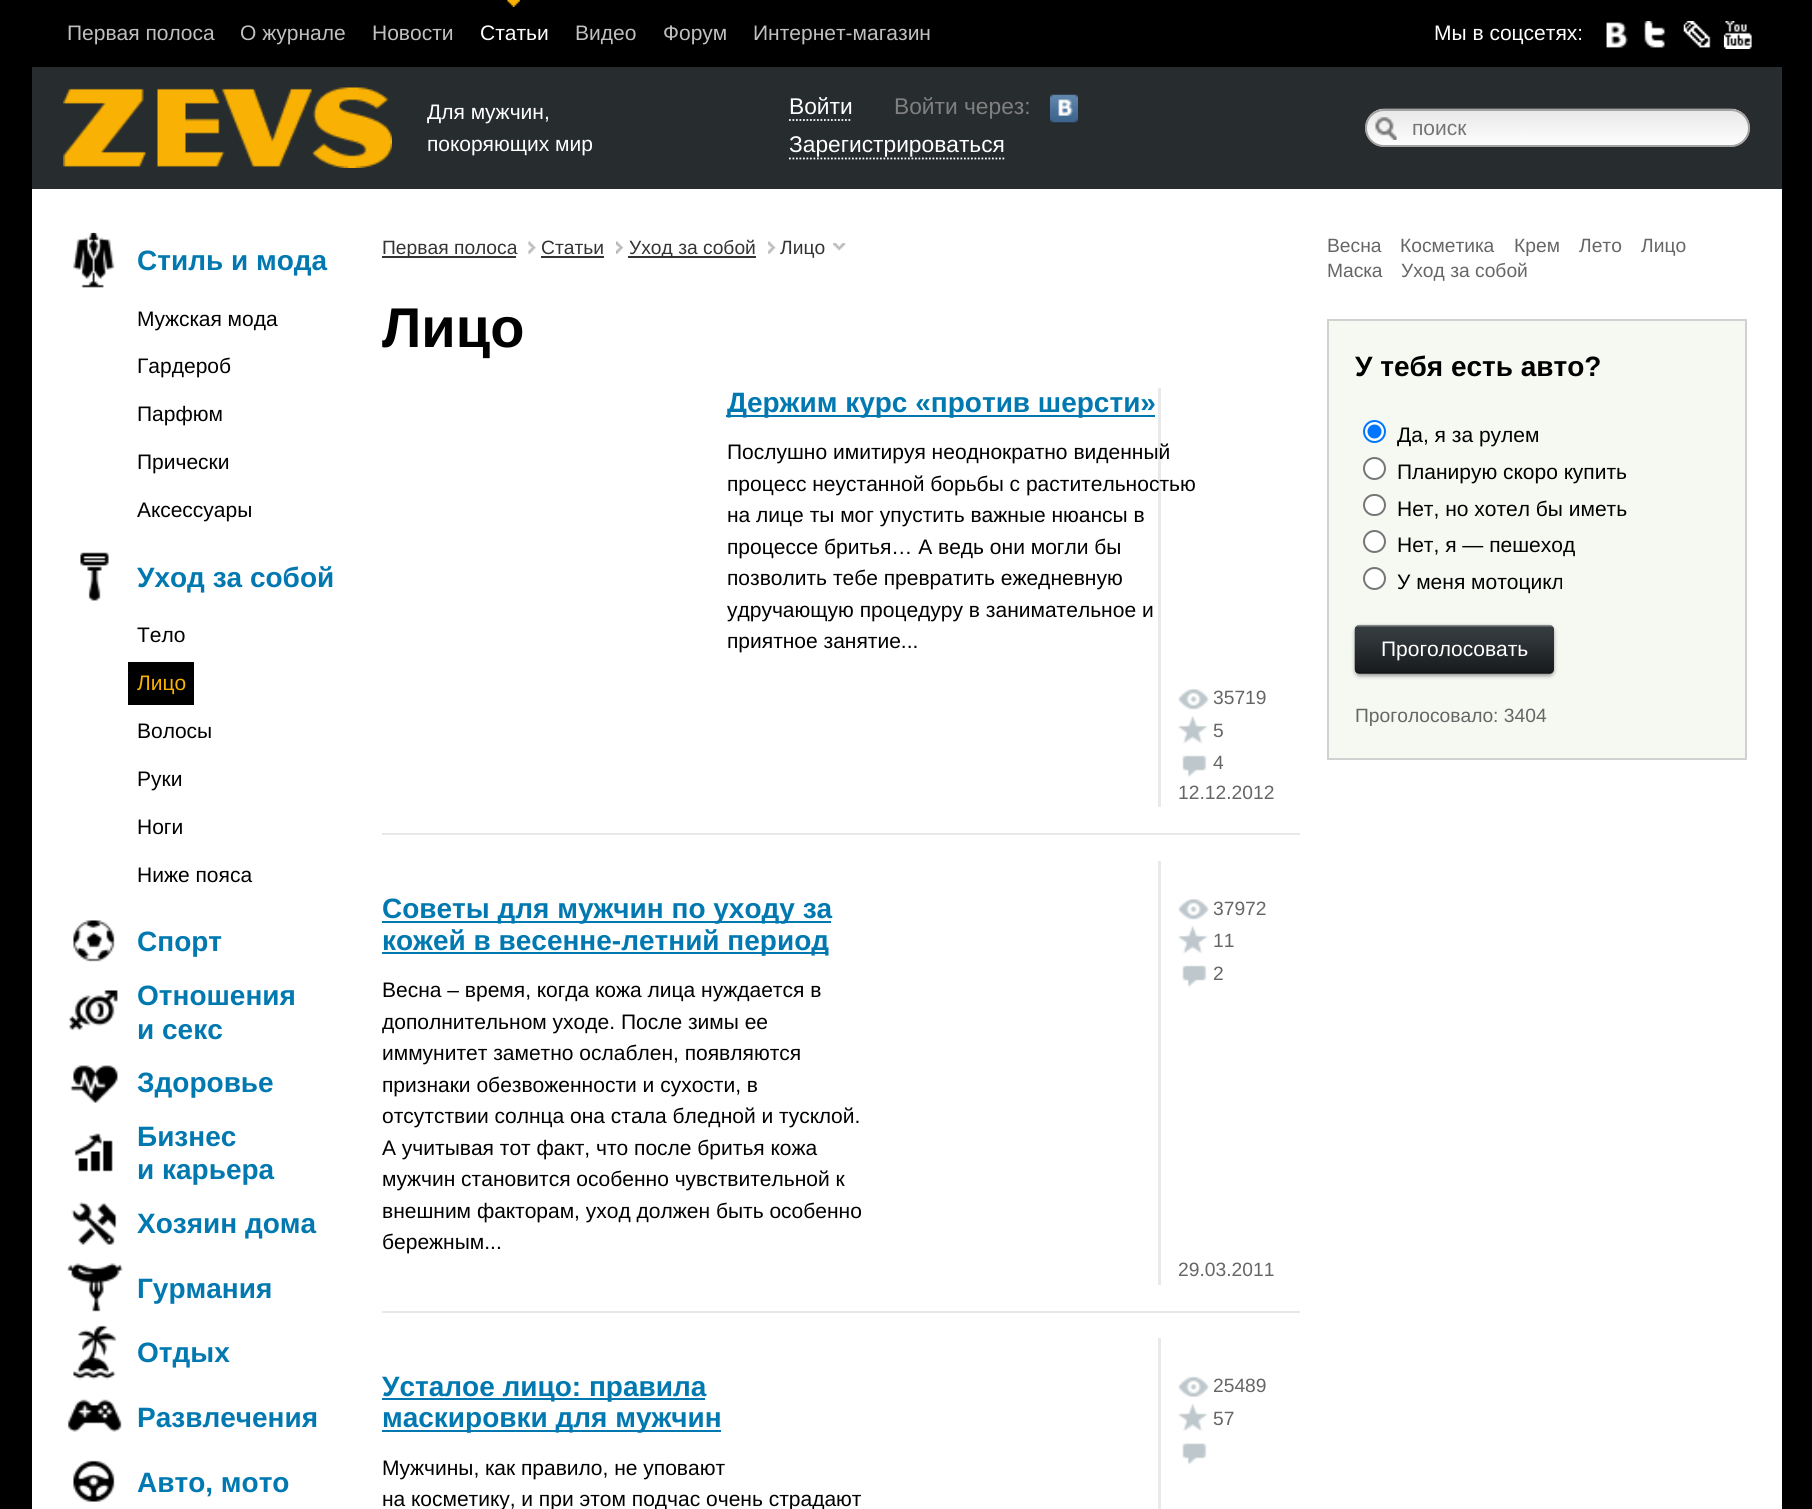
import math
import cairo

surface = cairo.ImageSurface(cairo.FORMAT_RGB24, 1812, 1509)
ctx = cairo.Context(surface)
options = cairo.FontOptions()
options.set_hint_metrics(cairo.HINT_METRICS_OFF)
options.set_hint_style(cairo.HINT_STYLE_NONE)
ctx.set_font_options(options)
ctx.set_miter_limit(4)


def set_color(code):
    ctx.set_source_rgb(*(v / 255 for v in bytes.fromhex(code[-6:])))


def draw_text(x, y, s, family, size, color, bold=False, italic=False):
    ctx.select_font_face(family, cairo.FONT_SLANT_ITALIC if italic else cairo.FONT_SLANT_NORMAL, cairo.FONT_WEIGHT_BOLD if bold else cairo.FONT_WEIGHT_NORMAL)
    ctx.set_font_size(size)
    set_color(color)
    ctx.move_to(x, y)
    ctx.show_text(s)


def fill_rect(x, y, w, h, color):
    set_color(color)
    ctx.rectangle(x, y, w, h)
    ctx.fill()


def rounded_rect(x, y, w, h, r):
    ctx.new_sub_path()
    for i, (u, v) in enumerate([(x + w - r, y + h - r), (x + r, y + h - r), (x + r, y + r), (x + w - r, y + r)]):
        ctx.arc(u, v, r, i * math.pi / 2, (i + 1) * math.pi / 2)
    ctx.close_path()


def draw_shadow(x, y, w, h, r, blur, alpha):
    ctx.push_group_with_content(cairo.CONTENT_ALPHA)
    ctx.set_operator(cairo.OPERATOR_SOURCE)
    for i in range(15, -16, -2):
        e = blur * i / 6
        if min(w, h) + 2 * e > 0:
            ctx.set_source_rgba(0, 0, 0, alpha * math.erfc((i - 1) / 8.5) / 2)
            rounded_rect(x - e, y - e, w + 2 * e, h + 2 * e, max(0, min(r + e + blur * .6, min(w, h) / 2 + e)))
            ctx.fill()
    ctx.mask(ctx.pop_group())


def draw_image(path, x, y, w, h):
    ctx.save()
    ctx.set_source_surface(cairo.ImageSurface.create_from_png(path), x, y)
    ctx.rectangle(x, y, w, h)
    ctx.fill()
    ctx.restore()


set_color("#000000")
ctx.paint()
draw_text(67, 40, "Первая полоса", "Liberation Sans", 21, "#c0c0c0")
draw_text(240, 40, "О журнале", "Liberation Sans", 21, "#c0c0c0")
draw_text(372, 40, "Новости", "Liberation Sans", 21, "#c0c0c0")
draw_image("assets/img1.png", 507, 0, 13, 7)
draw_text(480, 40, "Статьи", "Liberation Sans", 21, "#ffffff")
draw_text(575, 40, "Видео", "Liberation Sans", 21, "#c0c0c0")
draw_text(663, 40, "Форум", "Liberation Sans", 21, "#c0c0c0")
draw_text(753, 40, "Интернет-магазин", "Liberation Sans", 21, "#c0c0c0")
draw_text(1434, 40, "Мы в соцсетях:", "Liberation Sans", 21, "#ffffff")
draw_image("assets/img2.png", 1606, 22, 22, 26)
draw_image("assets/img3.png", 1643, 21, 23, 27)
draw_image("assets/img4.png", 1683, 21, 28, 27)
draw_image("assets/img5.png", 1723, 21, 29, 28)
fill_rect(32, 67, 1750, 122, "#272c2f")
draw_image("assets/img6.png", 63, 87, 329, 81)
draw_text(427, 119, "Для мужчин,", "Liberation Sans", 21, "#ffffff")
draw_text(427, 151, "покоряющих мир", "Liberation Sans", 21, "#ffffff")
draw_text(789, 114, "Войти", "Liberation Sans", 22.75, "#ffffff")
ctx.new_path()
ctx.move_to(789, 120)
ctx.line_to(852, 120)
ctx.set_line_width(1.8)
ctx.set_dash([1.75, 1.75])
ctx.stroke()
draw_text(894, 114, "Войти через:", "Liberation Sans", 22.75, "#808080")
draw_image("assets/img7.png", 1050, 94, 28, 29)
draw_text(789, 152, "Зарегистрироваться", "Liberation Sans", 22.75, "#ffffff")
ctx.new_path()
ctx.move_to(789, 158.5)
ctx.line_to(1004.5, 158.5)
ctx.stroke()
draw_image("assets/img8.png", 1365, 108, 385, 39)
rounded_rect(1366, 110, 383, 36, 18)
set_color("#a3a3a3")
ctx.set_line_width(2)
ctx.set_dash([])
ctx.stroke()
draw_text(1412, 135, "поиск", "Liberation Sans", 21, "#757575")
fill_rect(32, 189, 1750, 1320, "#ffffff")
draw_image("assets/img9.png", 73, 232, 42, 56)
draw_text(137, 270, "Стиль и мода", "Liberation Sans", 28, "#0179b0", bold=True)
draw_text(137, 326, "Мужская мода", "Liberation Sans", 21, "#000000")
draw_text(137, 373, "Гардероб", "Liberation Sans", 21, "#000000")
draw_text(137, 421, "Парфюм", "Liberation Sans", 21, "#000000")
draw_text(137, 469, "Прически", "Liberation Sans", 21, "#000000")
draw_text(137, 517, "Аксессуары", "Liberation Sans", 21, "#000000")
draw_image("assets/img10.png", 80, 552, 29, 49)
draw_text(137, 587, "Уход за собой", "Liberation Sans", 28, "#0179b0", bold=True)
draw_text(137, 642, "Тело", "Liberation Sans", 21, "#000000")
fill_rect(128, 662, 66, 43, "#000000")
draw_text(137, 690, "Лицо", "Liberation Sans", 21, "#f9b103")
draw_text(137, 738, "Волосы", "Liberation Sans", 21, "#000000")
draw_text(137, 786, "Руки", "Liberation Sans", 21, "#000000")
draw_text(137, 834, "Ноги", "Liberation Sans", 21, "#000000")
draw_text(137, 882, "Ниже пояса", "Liberation Sans", 21, "#000000")
draw_image("assets/img11.png", 73, 920, 42, 42)
draw_text(137, 951, "Спорт", "Liberation Sans", 28, "#0179b0", bold=True)
draw_image("assets/img12.png", 68, 990, 50, 41)
draw_text(137, 1005, "Отношения", "Liberation Sans", 28, "#0179b0", bold=True)
draw_text(137, 1039, "и секс", "Liberation Sans", 28, "#0179b0", bold=True)
draw_image("assets/img13.png", 70, 1065, 48, 38)
draw_text(137, 1092, "Здоровье", "Liberation Sans", 28, "#0179b0", bold=True)
draw_image("assets/img14.png", 74, 1133, 39, 39)
draw_text(137, 1146, "Бизнес", "Liberation Sans", 28, "#0179b0", bold=True)
draw_text(137, 1179, "и карьера", "Liberation Sans", 28, "#0179b0", bold=True)
draw_image("assets/img15.png", 71, 1202, 46, 43)
draw_text(137, 1233, "Хозяин дома", "Liberation Sans", 28, "#0179b0", bold=True)
draw_image("assets/img16.png", 67, 1263, 56, 49)
draw_text(137, 1298, "Гурмания", "Liberation Sans", 28, "#0179b0", bold=True)
draw_image("assets/img17.png", 73, 1325, 44, 55)
draw_text(137, 1362, "Отдых", "Liberation Sans", 28, "#0179b0", bold=True)
draw_image("assets/img18.png", 67, 1399, 55, 33)
draw_text(137, 1427, "Развлечения", "Liberation Sans", 28, "#0179b0", bold=True)
draw_image("assets/img19.png", 73, 1460, 42, 42)
draw_text(137, 1492, "Авто, мото", "Liberation Sans", 28, "#0179b0", bold=True)
fill_rect(382, 256, 134, 2, "#333333")
draw_text(382, 254, "Первая полоса", "Liberation Sans", 19.25, "#333333")
draw_image("assets/img20.png", 528, 241, 8, 13)
draw_text(541, 254, "Статьи", "Liberation Sans", 19.25, "#333333")
fill_rect(541, 256, 63, 2, "#333333")
draw_image("assets/img21.png", 616, 241, 7, 13)
fill_rect(628, 256, 128, 2, "#333333")
draw_text(629, 254, "Уход за собой", "Liberation Sans", 19.25, "#333333")
draw_image("assets/img22.png", 768, 241, 8, 13)
draw_text(780, 254, "Лицо", "Liberation Sans", 19.25, "#333333")
draw_image("assets/img23.png", 833, 243, 13, 8)
draw_text(382, 347, "Лицо", "Liberation Sans", 56, "#000000", bold=True)
fill_rect(1158, 388, 3, 419, "#e9e9e9")
fill_rect(726, 415, 429, 2, "#0179b0")
draw_text(727, 412, "Держим курс «против шерсти»", "Liberation Sans", 28, "#0179b0", bold=True)
draw_text(727, 459, "Послушно имитируя неоднократно виденный", "Liberation Sans", 21, "#000000")
draw_text(727, 491, "процесс неустанной борьбы с растительностью", "Liberation Sans", 21, "#000000")
draw_text(727, 522, "на лице ты мог упустить важные нюансы в", "Liberation Sans", 21, "#000000")
draw_text(727, 554, "процессе бритья… А ведь они могли бы", "Liberation Sans", 21, "#000000")
draw_text(727, 585, "позволить тебе превратить ежедневную", "Liberation Sans", 21, "#000000")
draw_text(727, 617, "удручающую процедуру в занимательное и", "Liberation Sans", 21, "#000000")
draw_text(727, 648, "приятное занятие...", "Liberation Sans", 21, "#000000")
draw_text(1178, 799, "12.12.2012", "Liberation Sans", 19.25, "#666666")
draw_image("assets/img24.png", 1178, 688, 31, 22)
draw_text(1213, 704, "35719", "Liberation Sans", 19.25, "#666666")
draw_image("assets/img25.png", 1178, 716, 30, 28)
draw_text(1213, 737, "5", "Liberation Sans", 19.25, "#666666")
draw_image("assets/img26.png", 1182, 755, 25, 22)
draw_text(1213, 769, "4", "Liberation Sans", 19.25, "#666666")
fill_rect(382, 833, 918, 2, "#e8e8e8")
fill_rect(1158, 861, 3, 424, "#e9e9e9")
fill_rect(382, 921, 449, 2, "#0179b0")
draw_text(382, 918, "Советы для мужчин по уходу за", "Liberation Sans", 28, "#0179b0", bold=True)
fill_rect(382, 952, 446, 2, "#0179b0")
draw_text(382, 950, "кожей в весенне-летний период", "Liberation Sans", 28, "#0179b0", bold=True)
draw_text(382, 997, "Весна – время, когда кожа лица нуждается в", "Liberation Sans", 21, "#000000")
ctx.save()
ctx.rectangle(382, 861, 918, 424)
ctx.clip()
draw_text(382, 1029, "дополнительном уходе. После зимы ее", "Liberation Sans", 21, "#000000")
ctx.restore()
draw_text(382, 1060, "иммунитет заметно ослаблен, появляются", "Liberation Sans", 21, "#000000")
draw_text(382, 1092, "признаки обезвоженности и сухости, в", "Liberation Sans", 21, "#000000")
draw_text(382, 1123, "отсутствии солнца она стала бледной и тусклой.", "Liberation Sans", 21, "#000000")
draw_text(382, 1155, "А учитывая тот факт, что после бритья кожа", "Liberation Sans", 21, "#000000")
draw_text(382, 1186, "мужчин становится особенно чувствительной к", "Liberation Sans", 21, "#000000")
draw_text(382, 1218, "внешним факторам, уход должен быть особенно", "Liberation Sans", 21, "#000000")
draw_text(382, 1249, "бережным...", "Liberation Sans", 21, "#000000")
draw_text(1178, 1276, "29.03.2011", "Liberation Sans", 19.25, "#666666")
draw_image("assets/img24.png", 1178, 898, 31, 22)
draw_text(1213, 915, "37972", "Liberation Sans", 19.25, "#666666")
draw_image("assets/img25.png", 1178, 926, 30, 28)
draw_text(1213, 947, "11", "Liberation Sans", 19.25, "#666666")
draw_image("assets/img26.png", 1182, 965, 25, 22)
draw_text(1213, 980, "2", "Liberation Sans", 19.25, "#666666")
fill_rect(382, 1311, 918, 2, "#e8e8e8")
fill_rect(1158, 1338, 3, 171, "#e9e9e9")
fill_rect(382, 1398, 323, 2, "#0179b0")
draw_text(382, 1396, "Усталое лицо: правила", "Liberation Sans", 28, "#0179b0", bold=True)
fill_rect(382, 1430, 339, 2, "#0179b0")
draw_text(382, 1427, "маскировки для мужчин", "Liberation Sans", 28, "#0179b0", bold=True)
draw_text(382, 1475, "Мужчины, как правило, не уповают", "Liberation Sans", 21, "#000000")
draw_text(382, 1506, "на косметику, и при этом подчас очень страдают", "Liberation Sans", 21, "#000000")
draw_image("assets/img27.png", 1178, 1376, 31, 22)
draw_text(1213, 1392, "25489", "Liberation Sans", 19.25, "#666666")
draw_image("assets/img28.png", 1178, 1403, 30, 28)
draw_text(1213, 1425, "57", "Liberation Sans", 19.25, "#666666")
draw_image("assets/img29.png", 1182, 1443, 25, 22)
draw_text(1327, 252, "Весна", "Liberation Sans", 19.25, "#666666")
draw_text(1400, 252, "Косметика", "Liberation Sans", 19.25, "#666666")
draw_text(1514, 252, "Крем", "Liberation Sans", 19.25, "#666666")
draw_text(1579, 252, "Лето", "Liberation Sans", 19.25, "#666666")
draw_text(1641, 252, "Лицо", "Liberation Sans", 19.25, "#666666")
draw_text(1327, 277, "Маска", "Liberation Sans", 19.25, "#666666")
draw_text(1401, 277, "Уход за собой", "Liberation Sans", 19.25, "#666666")
set_color("#f6f8f2")
ctx.rectangle(1328, 320, 418, 439)
ctx.fill_preserve()
set_color("#d1d1d1")
ctx.stroke()
draw_text(1355, 376, "У тебя есть авто?", "Liberation Sans", 28, "#000000", bold=True)
set_color("#ffffff")
ctx.new_path()
ctx.arc(1374.5, 431.5, 10.5, 0, 2 * math.pi)
ctx.fill_preserve()
set_color("#0075ff")
ctx.stroke()
ctx.arc(1374.5, 431.5, 7, 0, 2 * math.pi)
ctx.fill()
draw_text(1397, 442, "Да, я за рулем", "Liberation Sans", 21, "#000000")
set_color("#ffffff")
ctx.new_path()
ctx.arc(1374.5, 468.5, 10.5, 0, 2 * math.pi)
ctx.fill_preserve()
set_color("#767676")
ctx.stroke()
draw_text(1397, 479, "Планирую скоро купить", "Liberation Sans", 21, "#000000")
set_color("#ffffff")
rounded_rect(1364, 495, 21, 20, 10)
ctx.fill_preserve()
set_color("#767676")
ctx.stroke()
draw_text(1397, 516, "Нет, но хотел бы иметь", "Liberation Sans", 21, "#000000")
set_color("#ffffff")
ctx.new_path()
ctx.arc(1374.5, 541.5, 10.5, 0, 2 * math.pi)
ctx.fill_preserve()
set_color("#767676")
ctx.stroke()
draw_text(1397, 552, "Нет, я — пешеход", "Liberation Sans", 21, "#000000")
set_color("#ffffff")
ctx.new_path()
ctx.arc(1374.5, 578.5, 10.5, 0, 2 * math.pi)
ctx.fill_preserve()
set_color("#767676")
ctx.stroke()
draw_text(1397, 589, "У меня мотоцикл", "Liberation Sans", 21, "#000000")
set_color("#999999")
draw_shadow(1355, 627, 199, 49, 5, 2, 1)
set_color("#262b2e")
rounded_rect(1355, 625, 199, 49, 5)
ctx.fill()
draw_image("assets/img30.png", 1354, 624, 200, 50)
draw_text(1381, 656, "Проголосовать", "Liberation Sans", 21, "#ffffff")
draw_text(1355, 722, "Проголосовало: 3404", "Liberation Sans", 19.25, "#666666")
surface.write_to_png("output.png")
